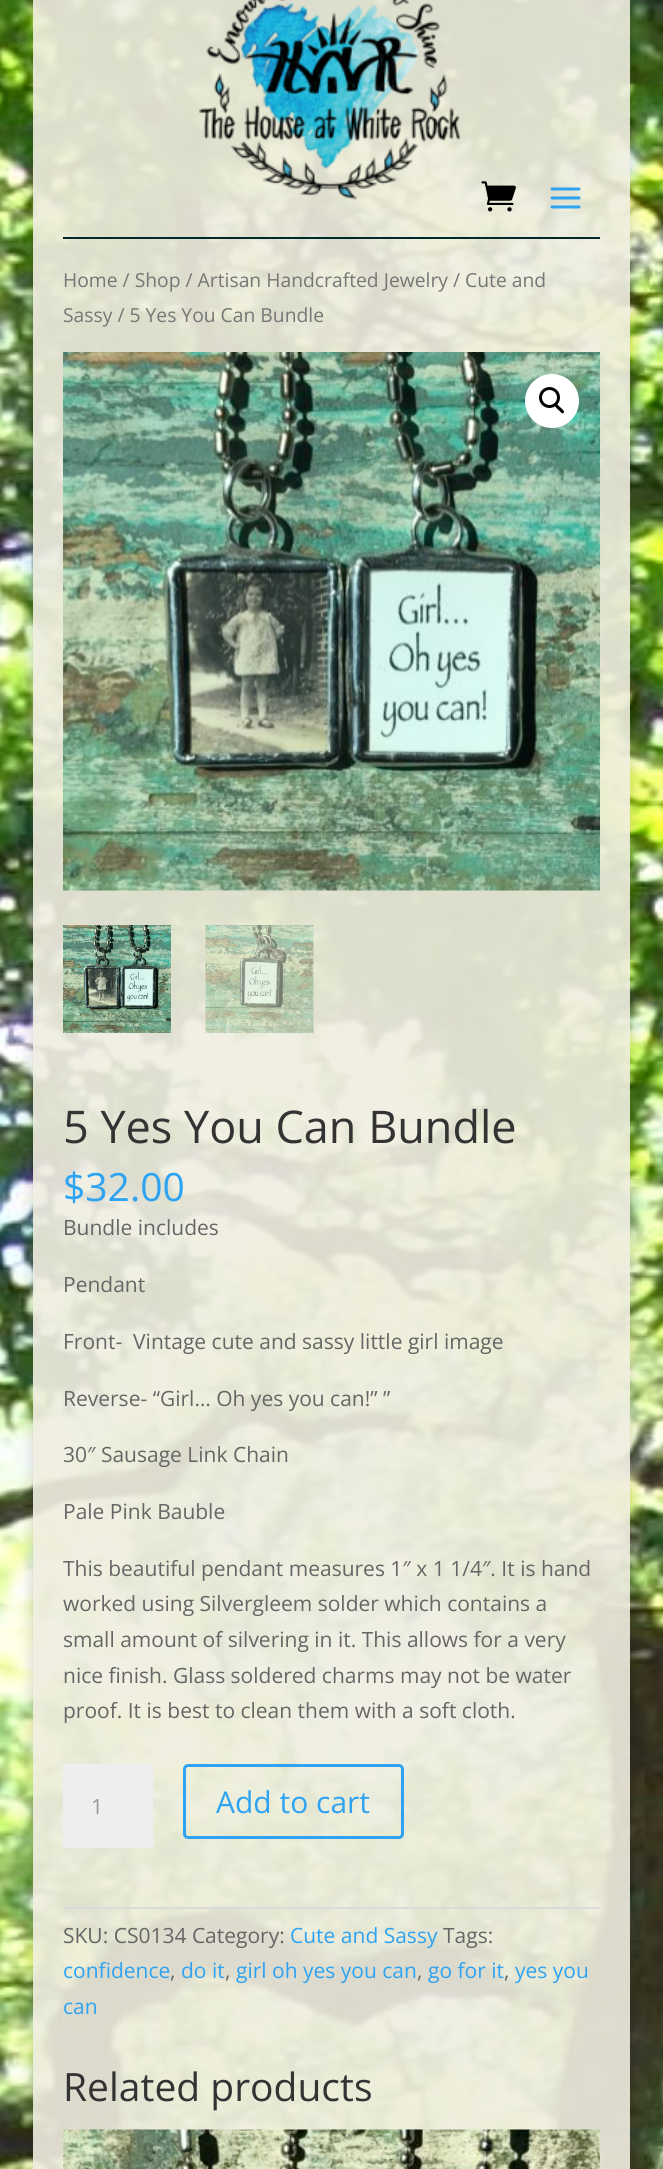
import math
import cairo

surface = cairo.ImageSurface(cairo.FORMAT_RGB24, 663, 2169)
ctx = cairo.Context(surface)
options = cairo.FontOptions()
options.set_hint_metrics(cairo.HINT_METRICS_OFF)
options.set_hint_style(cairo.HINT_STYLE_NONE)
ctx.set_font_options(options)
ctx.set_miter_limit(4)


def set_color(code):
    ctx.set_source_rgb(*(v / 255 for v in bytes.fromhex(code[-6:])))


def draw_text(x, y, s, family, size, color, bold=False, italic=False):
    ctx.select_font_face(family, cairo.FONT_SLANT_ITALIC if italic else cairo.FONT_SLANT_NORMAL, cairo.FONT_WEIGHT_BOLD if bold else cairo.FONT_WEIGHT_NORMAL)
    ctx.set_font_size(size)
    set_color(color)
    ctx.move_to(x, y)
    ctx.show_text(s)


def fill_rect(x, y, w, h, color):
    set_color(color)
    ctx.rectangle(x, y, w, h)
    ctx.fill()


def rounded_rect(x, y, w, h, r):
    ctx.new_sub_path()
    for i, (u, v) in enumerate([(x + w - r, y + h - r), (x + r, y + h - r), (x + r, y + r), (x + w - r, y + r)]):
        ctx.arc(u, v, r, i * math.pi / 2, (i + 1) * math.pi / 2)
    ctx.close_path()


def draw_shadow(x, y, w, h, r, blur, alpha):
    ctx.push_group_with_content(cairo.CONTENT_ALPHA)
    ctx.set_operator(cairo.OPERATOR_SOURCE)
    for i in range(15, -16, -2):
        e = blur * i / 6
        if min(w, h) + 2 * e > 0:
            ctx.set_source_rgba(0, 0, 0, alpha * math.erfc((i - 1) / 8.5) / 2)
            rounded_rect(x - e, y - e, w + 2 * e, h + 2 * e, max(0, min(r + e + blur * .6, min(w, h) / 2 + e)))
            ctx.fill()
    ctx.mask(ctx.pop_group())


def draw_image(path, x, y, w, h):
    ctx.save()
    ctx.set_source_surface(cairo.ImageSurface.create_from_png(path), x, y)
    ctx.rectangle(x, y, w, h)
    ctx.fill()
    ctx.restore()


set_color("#ffffff")
ctx.paint()
draw_image("assets/img1.png", 0, 0, 663, 2169)
ctx.save()
ctx.set_fill_rule(cairo.FILL_RULE_EVEN_ODD)
ctx.new_path()
ctx.move_to(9, 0)
ctx.line_to(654, 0)
ctx.line_to(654, 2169)
ctx.line_to(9, 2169)
ctx.close_path()
ctx.move_to(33, -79)
ctx.line_to(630, -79)
ctx.line_to(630, 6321)
ctx.line_to(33, 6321)
ctx.close_path()
ctx.clip()
set_color("#000000")
draw_shadow(33, -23, 597, 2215, 0, 7.5, 0.2)
ctx.restore()
ctx.set_source_rgba(0.941, 0.929, 0.878, 0.9)
ctx.rectangle(33, 0, 597, 255)
ctx.fill()
draw_image("assets/img2.png", 198, 0, 263, 200)
draw_image("assets/img3.png", 481, 181, 35, 31)
draw_image("assets/img4.png", 550, 187, 31, 22)
fill_rect(63, 237, 537, 2, "#00292a")
ctx.set_source_rgba(0.941, 0.929, 0.878, 0.9)
ctx.rectangle(33, 255, 597, 1914)
ctx.fill()
draw_text(63, 287, "Home / Shop / Artisan Handcrafted Jewelry / Cute and", "Open Sans", 19.3, "#767676")
draw_text(63, 322, "Sassy / 5 Yes You Can Bundle", "Open Sans", 19.3, "#767676")
draw_image("assets/img5.png", 63, 352, 537, 539)
set_color("#ffffff")
ctx.arc(552, 401, 27, 0, 2 * math.pi)
ctx.fill()
ctx.arc(549.5, 397.5, 9, 0, 2 * math.pi)
set_color("#000000")
ctx.set_line_width(3)
ctx.stroke()
ctx.new_path()
ctx.move_to(555.5, 404.5)
ctx.curve_to(557, 403, 559.5, 407, 560.5, 407.5)
ctx.curve_to(561.5, 408.5, 565.5, 411.5, 563.5, 413)
ctx.curve_to(562, 414.5, 559.5, 410.5, 558.5, 410)
ctx.curve_to(557.5, 409, 553.5, 406, 555.5, 404.5)
ctx.close_path()
ctx.fill()
draw_image("assets/img6.png", 63, 925, 108, 108)
draw_image("assets/img7.png", 205, 925, 109, 108)
draw_text(63, 1143, "5 Yes You Can Bundle", "Open Sans", 45, "#333333")
draw_text(63, 1201, "$32.00", "Open Sans", 39, "#2ea3f2")
draw_text(63, 1235, "Bundle includes", "Open Sans", 21, "#666666")
draw_text(63, 1292, "Pendant", "Open Sans", 21, "#666666")
draw_text(63, 1349, "Front-  Vintage cute and sassy little girl image", "Open Sans", 21, "#666666")
draw_text(63, 1406, "Reverse- “Girl… Oh yes you can!” ”", "Open Sans", 21, "#666666")
draw_text(63, 1462, "30″ Sausage Link Chain", "Open Sans", 21, "#666666")
draw_text(63, 1519, "Pale Pink Bauble", "Open Sans", 21, "#666666")
draw_text(63, 1576, "This beautiful pendant measures 1″ x 1 1/4″. It is hand", "Open Sans", 21, "#666666")
draw_text(63, 1611, "worked using Silvergleem solder which contains a", "Open Sans", 21, "#666666")
draw_text(63, 1647, "small amount of silvering in it. This allows for a very", "Open Sans", 21, "#666666")
draw_text(63, 1683, "nice finish. Glass soldered charms may not be water", "Open Sans", 21, "#666666")
draw_text(63, 1718, "proof. It is best to clean them with a soft cloth.", "Open Sans", 21, "#666666")
fill_rect(63, 1764, 90, 84, "#eeeeee")
draw_text(91, 1814, "1", "Open Sans", 21, "#999999")
rounded_rect(184.5, 1765.5, 218, 72, 3.5)
set_color("#2ea3f2")
ctx.stroke()
draw_text(216, 1813, "Add to cart", "Open Sans", 30, "#2ea3f2")
fill_rect(63, 1907, 537, 2, "#dadada")
draw_text(63, 1943, "SKU: CS0134 Category:", "Open Sans", 21, "#666666")
draw_text(290, 1943, "Cute and Sassy", "Open Sans", 21, "#2ea3f2")
draw_text(443, 1943, "Tags:", "Open Sans", 21, "#666666")
draw_text(63, 1978, "confidence", "Open Sans", 21, "#2ea3f2")
draw_text(170, 1978, ",", "Open Sans", 21, "#666666")
draw_text(181, 1978, "do it", "Open Sans", 21, "#2ea3f2")
draw_text(225, 1978, ",", "Open Sans", 21, "#666666")
draw_text(236, 1978, "girl oh yes you can", "Open Sans", 21, "#2ea3f2")
draw_text(417, 1978, ",", "Open Sans", 21, "#666666")
draw_text(428, 1978, "go for it", "Open Sans", 21, "#2ea3f2")
draw_text(504, 1978, ",", "Open Sans", 21, "#666666")
draw_text(515, 1978, "yes you", "Open Sans", 21, "#2ea3f2")
draw_text(63, 2014, "can", "Open Sans", 21, "#2ea3f2")
draw_text(63, 2101, "Related products", "Open Sans", 39, "#333333")
draw_image("assets/img8.png", 63, 2129, 537, 40)
surface.write_to_png("output.png")
